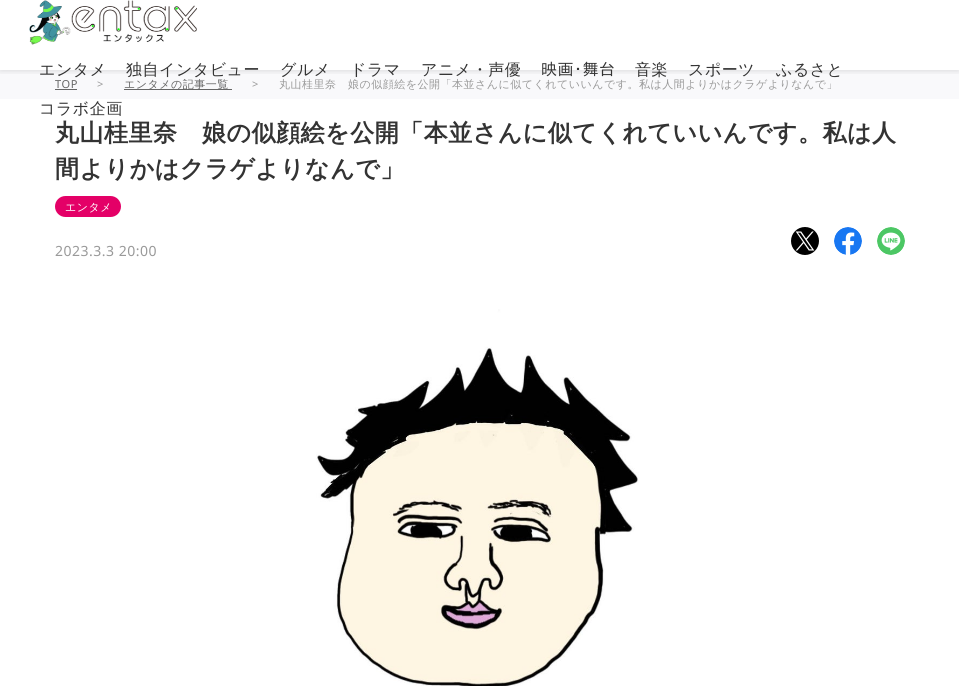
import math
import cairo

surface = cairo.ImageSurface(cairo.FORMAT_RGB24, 959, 686)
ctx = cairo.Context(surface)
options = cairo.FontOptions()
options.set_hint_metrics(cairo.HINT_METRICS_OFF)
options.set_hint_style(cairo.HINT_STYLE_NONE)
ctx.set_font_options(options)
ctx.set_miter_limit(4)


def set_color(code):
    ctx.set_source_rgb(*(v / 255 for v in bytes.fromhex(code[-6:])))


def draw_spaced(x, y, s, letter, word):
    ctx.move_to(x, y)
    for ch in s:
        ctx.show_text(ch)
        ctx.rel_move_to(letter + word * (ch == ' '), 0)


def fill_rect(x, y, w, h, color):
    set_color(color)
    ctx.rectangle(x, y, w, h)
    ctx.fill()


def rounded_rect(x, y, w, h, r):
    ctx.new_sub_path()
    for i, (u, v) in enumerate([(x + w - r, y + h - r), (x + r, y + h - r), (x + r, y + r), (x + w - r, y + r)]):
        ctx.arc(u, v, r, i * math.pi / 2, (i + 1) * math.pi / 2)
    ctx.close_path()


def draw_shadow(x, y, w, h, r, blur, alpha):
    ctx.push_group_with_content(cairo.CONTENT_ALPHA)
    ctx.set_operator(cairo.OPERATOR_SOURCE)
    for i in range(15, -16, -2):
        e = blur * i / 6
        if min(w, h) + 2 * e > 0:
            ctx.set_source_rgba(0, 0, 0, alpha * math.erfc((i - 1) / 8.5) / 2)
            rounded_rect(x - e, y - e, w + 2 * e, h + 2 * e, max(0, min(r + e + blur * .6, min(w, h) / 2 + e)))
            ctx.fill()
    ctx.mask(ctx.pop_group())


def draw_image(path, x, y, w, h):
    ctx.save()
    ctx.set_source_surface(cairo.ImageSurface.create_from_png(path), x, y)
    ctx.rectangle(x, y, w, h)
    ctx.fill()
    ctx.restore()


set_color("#ffffff")
ctx.paint()
fill_rect(0, 70, 959, 29, "#f9f9fb")
ctx.save()
ctx.rectangle(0, 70, 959, 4)
ctx.clip()
set_color("#000000")
draw_shadow(0, 0, 959, 70, 0, 4, 0.15)
ctx.restore()
draw_image("assets/img1.png", 29, 0, 168, 45)
ctx.select_font_face("WenQuanYi Zen Hei Medium")
ctx.set_font_size(16)
set_color("#333333")
draw_spaced(39, 75, "エンタメ", 0.5, 0)
draw_spaced(126, 75, "独自インタビュー", 0.5, 0)
draw_spaced(280, 75, "グルメ", 0.5, 0)
draw_spaced(350, 75, "ドラマ", 0.5, 0)
draw_spaced(421, 75, "アニメ・声優", 0.5, 0)
ctx.select_font_face("IPAPGothic")
draw_spaced(541, 75, "映画･舞台", 0.5, 0)
ctx.select_font_face("WenQuanYi Zen Hei Medium")
draw_spaced(635, 75, "音楽", 0.5, 0)
draw_spaced(688, 75, "スポーツ", 0.5, 0)
draw_spaced(776, 75, "ふるさと", 0.5, 0)
draw_spaced(39, 114, "コラボ企画", 0.5, 0)
ctx.select_font_face("Noto Sans")
ctx.set_font_size(11)
set_color("#666666")
draw_spaced(55, 88, "TOP", 0.5, 0)
fill_rect(55, 89, 22, 1, "#666666")
set_color("#999999")
draw_spaced(97, 88, ">", 0.5, 0)
fill_rect(124, 89, 108, 1, "#666666")
ctx.select_font_face("WenQuanYi Zen Hei Medium")
draw_spaced(124, 88, "エンタメの記事一覧", 0.5, 0)
ctx.select_font_face("Noto Sans")
set_color("#999999")
draw_spaced(252, 88, ">", 0.5, 0)
ctx.select_font_face("WenQuanYi Zen Hei Medium")
draw_spaced(279, 88, "丸山桂里奈　娘の似顔絵を公開「本並さんに似てくれていいんです。私は人間よりかはクラゲよりなんで」", 0.5, 0)
ctx.select_font_face("WenQuanYi Zen Hei", cairo.FONT_SLANT_NORMAL, cairo.FONT_WEIGHT_BOLD)
ctx.set_font_size(24)
set_color("#333333")
draw_spaced(55, 141, "丸山桂里奈　娘の似顔絵を公開「本並さんに似てくれていいんです。私は人", 0.5, 0)
draw_spaced(55, 177, "間よりかはクラゲよりなんで」", 0.5, 0)
set_color("#e40067")
rounded_rect(55, 196, 66, 21, 10.5)
ctx.fill()
ctx.select_font_face("WenQuanYi Zen Hei Medium")
ctx.set_font_size(11)
set_color("#ffffff")
draw_spaced(65, 211, "エンタメ", 0.5, 0)
ctx.select_font_face("Noto Sans")
ctx.set_font_size(14)
set_color("#999999")
draw_spaced(55, 256, "2023.3.3 20:00", 0.5, 0)
draw_image("assets/img2.png", 791, 227, 28, 28)
draw_image("assets/img3.png", 834, 227, 28, 28)
draw_image("assets/img4.png", 877, 227, 28, 28)
draw_image("assets/img5.png", 316, 309, 323, 377)
surface.write_to_png("output.png")
